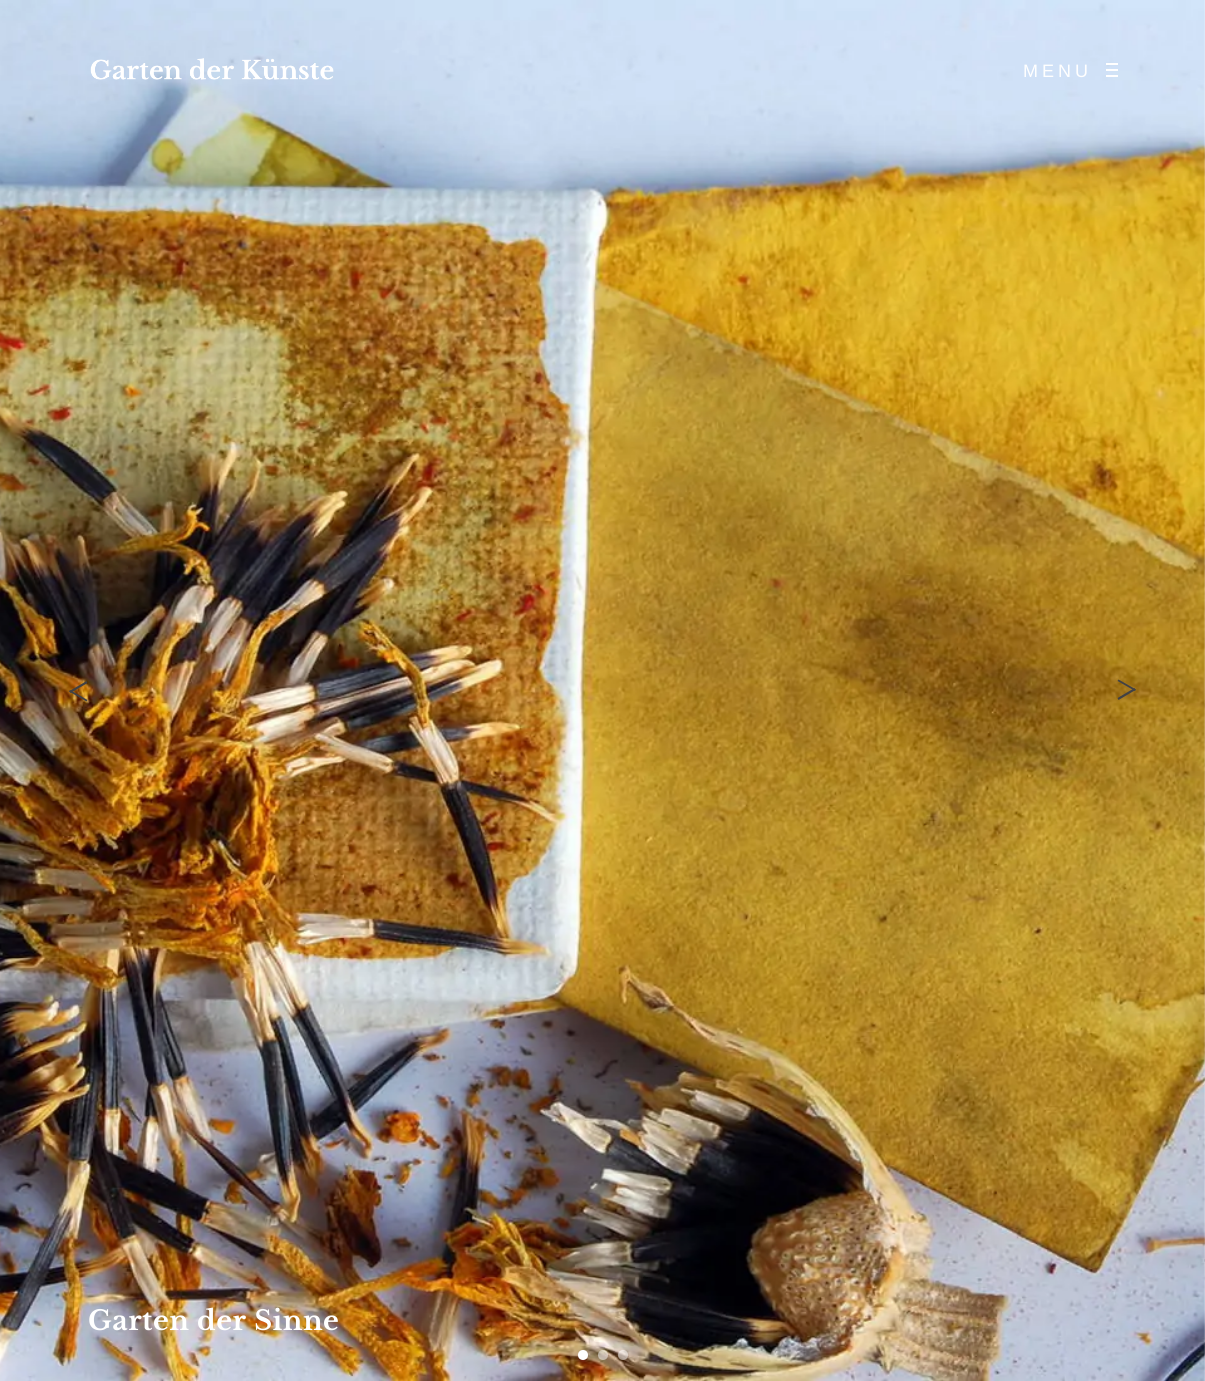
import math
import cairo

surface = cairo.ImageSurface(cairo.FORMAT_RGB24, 1205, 1381)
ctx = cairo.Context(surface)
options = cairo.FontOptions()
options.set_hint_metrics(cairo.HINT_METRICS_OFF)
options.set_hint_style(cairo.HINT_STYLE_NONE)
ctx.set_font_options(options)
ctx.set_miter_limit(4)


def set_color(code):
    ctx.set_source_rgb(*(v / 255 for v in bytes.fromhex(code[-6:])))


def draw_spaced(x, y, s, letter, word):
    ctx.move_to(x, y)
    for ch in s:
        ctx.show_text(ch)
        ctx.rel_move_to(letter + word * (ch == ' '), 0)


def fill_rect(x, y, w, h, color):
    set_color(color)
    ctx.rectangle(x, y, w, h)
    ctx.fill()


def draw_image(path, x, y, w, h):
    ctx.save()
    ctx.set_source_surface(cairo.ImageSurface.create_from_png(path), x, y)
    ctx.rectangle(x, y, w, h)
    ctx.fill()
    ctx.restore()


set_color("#ffffff")
ctx.paint()
draw_image("assets/img2.png", 0, 0, 1205, 1381)
draw_image("assets/img1.png", 90, 58, 244, 22)
ctx.select_font_face("Liberation Sans")
ctx.set_font_size(18)
set_color("#ffffff")
draw_spaced(1023, 77, "MENU", 4, 0)
fill_rect(1106, 63, 12, 2, "#ffffff")
fill_rect(1106, 69, 12, 2, "#ffffff")
fill_rect(1106, 75, 12, 2, "#ffffff")
set_color("#414145")
ctx.new_path()
ctx.move_to(70.5, 693)
ctx.line_to(69.5, 691)
ctx.line_to(86.5, 681)
ctx.line_to(87.5, 683)
ctx.close_path()
ctx.fill()
ctx.new_path()
ctx.move_to(87.5, 700)
ctx.line_to(86.5, 701.5)
ctx.line_to(69, 691.5)
ctx.line_to(70, 690)
ctx.close_path()
ctx.fill()
ctx.new_path()
ctx.move_to(1134.5, 688)
ctx.line_to(1135.5, 690)
ctx.line_to(1118.5, 700)
ctx.line_to(1117.5, 698)
ctx.close_path()
ctx.fill()
ctx.new_path()
ctx.move_to(1117.5, 681)
ctx.line_to(1118.5, 679.5)
ctx.line_to(1136, 689.5)
ctx.line_to(1135, 691)
ctx.close_path()
ctx.fill()
ctx.select_font_face("Libre Baskerville", cairo.FONT_SLANT_NORMAL, cairo.FONT_WEIGHT_BOLD)
ctx.set_font_size(27)
set_color("#ffffff")
draw_spaced(88, 1330, "Garten der Sinne", 0.5, 0)
ctx.new_path()
ctx.arc(583, 1355, 5, 0, 2 * math.pi)
ctx.fill()
ctx.set_source_rgba(1, 1, 1, 0.5)
ctx.arc(603, 1355, 5, 0, 2 * math.pi)
ctx.fill()
ctx.arc(623, 1355, 5, 0, 2 * math.pi)
ctx.fill()
surface.write_to_png("output.png")
